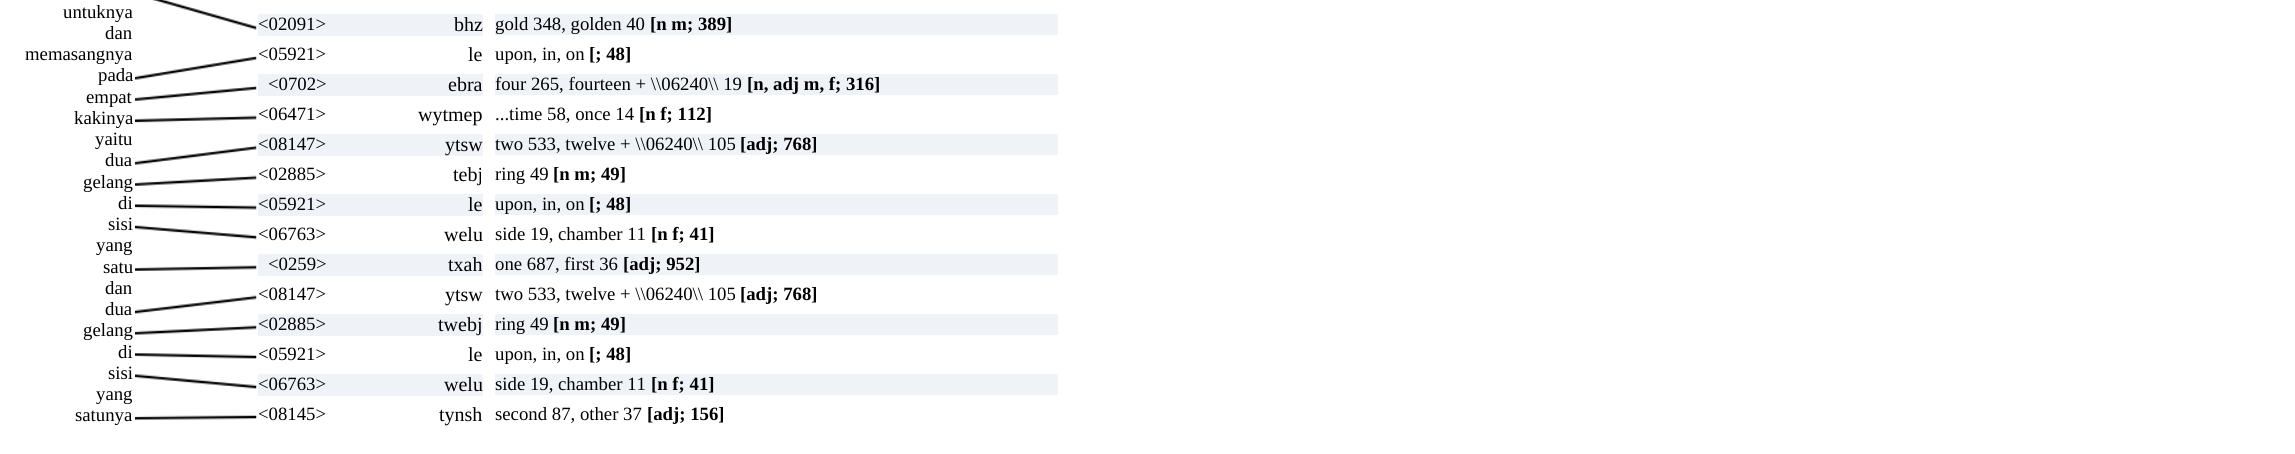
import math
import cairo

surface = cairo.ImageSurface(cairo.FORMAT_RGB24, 2295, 454)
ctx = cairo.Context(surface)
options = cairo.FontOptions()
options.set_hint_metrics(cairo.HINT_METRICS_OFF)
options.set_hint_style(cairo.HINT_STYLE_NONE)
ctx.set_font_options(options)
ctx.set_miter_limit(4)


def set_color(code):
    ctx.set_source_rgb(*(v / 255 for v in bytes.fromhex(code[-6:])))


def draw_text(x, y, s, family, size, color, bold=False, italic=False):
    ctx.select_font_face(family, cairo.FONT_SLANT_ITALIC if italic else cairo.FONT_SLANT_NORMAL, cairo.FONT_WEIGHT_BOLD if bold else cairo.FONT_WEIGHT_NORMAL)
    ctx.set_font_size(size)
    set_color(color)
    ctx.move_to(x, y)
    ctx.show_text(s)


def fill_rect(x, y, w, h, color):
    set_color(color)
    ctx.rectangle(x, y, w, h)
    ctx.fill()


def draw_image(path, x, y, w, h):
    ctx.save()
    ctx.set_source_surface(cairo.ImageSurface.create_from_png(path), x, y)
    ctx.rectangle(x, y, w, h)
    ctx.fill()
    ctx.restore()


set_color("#ffffff")
ctx.paint()
draw_text(63, 18, "untuknya", "Liberation Serif", 18.75, "#000000")
draw_image("assets/img1.png", 135, 0, 122, 420)
draw_text(105, 39, "dan", "Liberation Serif", 18.75, "#000000")
fill_rect(258, 14, 225, 22, "#eff3f7")
draw_text(258, 30, "<02091>", "Liberation Serif", 18.75, "#000000")
draw_text(454, 31, "bhz", "Liberation Serif", 20, "#000000")
fill_rect(495, 14, 563, 21, "#eff3f7")
draw_text(495, 30, "gold 348, golden 40", "Liberation Serif", 18.75, "#000000")
draw_text(650, 30, "[n m; 389]", "Liberation Serif", 18.75, "#000000", bold=True)
draw_text(25, 60, "memasangnya", "Liberation Serif", 18.75, "#000000")
draw_text(258, 60, "<05921>", "Liberation Serif", 18.75, "#000000")
draw_text(468, 61, "le", "Liberation Serif", 20, "#000000")
draw_text(495, 60, "upon, in, on", "Liberation Serif", 18.75, "#000000")
draw_text(589, 60, "[; 48]", "Liberation Serif", 18.75, "#000000", bold=True)
draw_text(98, 81, "pada", "Liberation Serif", 18.75, "#000000")
fill_rect(258, 74, 225, 22, "#eff3f7")
draw_text(268, 90, "<0702>", "Liberation Serif", 18.75, "#000000")
draw_text(448, 91, "ebra", "Liberation Serif", 20, "#000000")
fill_rect(495, 74, 563, 21, "#eff3f7")
draw_text(495, 90, "four 265, fourteen + \\\\06240\\\\ 19", "Liberation Serif", 18.75, "#000000")
draw_text(747, 90, "[n, adj m, f; 316]", "Liberation Serif", 18.75, "#000000", bold=True)
draw_text(86, 103, "empat", "Liberation Serif", 18.75, "#000000")
draw_text(74, 124, "kakinya", "Liberation Serif", 18.75, "#000000")
draw_text(258, 120, "<06471>", "Liberation Serif", 18.75, "#000000")
draw_text(418, 121, "wytmep", "Liberation Serif", 20, "#000000")
draw_text(495, 120, "...time 58, once 14", "Liberation Serif", 18.75, "#000000")
draw_text(639, 120, "[n f; 112]", "Liberation Serif", 18.75, "#000000", bold=True)
draw_text(95, 145, "yaitu", "Liberation Serif", 18.75, "#000000")
fill_rect(258, 134, 225, 22, "#eff3f7")
draw_text(258, 150, "<08147>", "Liberation Serif", 18.75, "#000000")
draw_text(445, 151, "ytsw", "Liberation Serif", 20, "#000000")
fill_rect(495, 134, 563, 21, "#eff3f7")
draw_text(495, 150, "two 533, twelve + \\\\06240\\\\ 105", "Liberation Serif", 18.75, "#000000")
draw_text(740, 150, "[adj; 768]", "Liberation Serif", 18.75, "#000000", bold=True)
draw_text(105, 166, "dua", "Liberation Serif", 18.75, "#000000")
draw_text(83, 188, "gelang", "Liberation Serif", 18.75, "#000000")
draw_text(258, 180, "<02885>", "Liberation Serif", 18.75, "#000000")
draw_text(453, 181, "tebj", "Liberation Serif", 20, "#000000")
draw_text(495, 180, "ring 49", "Liberation Serif", 18.75, "#000000")
draw_text(553, 180, "[n m; 49]", "Liberation Serif", 18.75, "#000000", bold=True)
draw_text(118, 209, "di", "Liberation Serif", 18.75, "#000000")
fill_rect(258, 194, 225, 22, "#eff3f7")
draw_text(258, 210, "<05921>", "Liberation Serif", 18.75, "#000000")
draw_text(468, 211, "le", "Liberation Serif", 20, "#000000")
fill_rect(495, 194, 563, 21, "#eff3f7")
draw_text(495, 210, "upon, in, on", "Liberation Serif", 18.75, "#000000")
draw_text(589, 210, "[; 48]", "Liberation Serif", 18.75, "#000000", bold=True)
draw_text(108, 230, "sisi", "Liberation Serif", 18.75, "#000000")
draw_text(258, 240, "<06763>", "Liberation Serif", 18.75, "#000000")
draw_text(444, 241, "welu", "Liberation Serif", 20, "#000000")
draw_text(495, 240, "side 19, chamber 11", "Liberation Serif", 18.75, "#000000")
draw_text(651, 240, "[n f; 41]", "Liberation Serif", 18.75, "#000000", bold=True)
draw_text(96, 251, "yang", "Liberation Serif", 18.75, "#000000")
draw_text(103, 273, "satu", "Liberation Serif", 18.75, "#000000")
fill_rect(258, 254, 225, 22, "#eff3f7")
draw_text(268, 270, "<0259>", "Liberation Serif", 18.75, "#000000")
draw_text(448, 271, "txah", "Liberation Serif", 20, "#000000")
fill_rect(495, 254, 563, 21, "#eff3f7")
draw_text(495, 270, "one 687, first 36", "Liberation Serif", 18.75, "#000000")
draw_text(623, 270, "[adj; 952]", "Liberation Serif", 18.75, "#000000", bold=True)
draw_text(105, 294, "dan", "Liberation Serif", 18.75, "#000000")
draw_text(258, 300, "<08147>", "Liberation Serif", 18.75, "#000000")
draw_text(445, 301, "ytsw", "Liberation Serif", 20, "#000000")
draw_text(495, 300, "two 533, twelve + \\\\06240\\\\ 105", "Liberation Serif", 18.75, "#000000")
draw_text(740, 300, "[adj; 768]", "Liberation Serif", 18.75, "#000000", bold=True)
draw_text(105, 315, "dua", "Liberation Serif", 18.75, "#000000")
draw_text(83, 336, "gelang", "Liberation Serif", 18.75, "#000000")
fill_rect(258, 314, 225, 22, "#eff3f7")
draw_text(258, 330, "<02885>", "Liberation Serif", 18.75, "#000000")
draw_text(438, 331, "twebj", "Liberation Serif", 20, "#000000")
fill_rect(495, 314, 563, 21, "#eff3f7")
draw_text(495, 330, "ring 49", "Liberation Serif", 18.75, "#000000")
draw_text(553, 330, "[n m; 49]", "Liberation Serif", 18.75, "#000000", bold=True)
draw_text(118, 358, "di", "Liberation Serif", 18.75, "#000000")
draw_text(258, 360, "<05921>", "Liberation Serif", 18.75, "#000000")
draw_text(468, 361, "le", "Liberation Serif", 20, "#000000")
draw_text(495, 360, "upon, in, on", "Liberation Serif", 18.75, "#000000")
draw_text(589, 360, "[; 48]", "Liberation Serif", 18.75, "#000000", bold=True)
draw_text(108, 379, "sisi", "Liberation Serif", 18.75, "#000000")
fill_rect(258, 374, 225, 22, "#eff3f7")
draw_text(258, 390, "<06763>", "Liberation Serif", 18.75, "#000000")
draw_text(444, 391, "welu", "Liberation Serif", 20, "#000000")
fill_rect(495, 374, 563, 21, "#eff3f7")
draw_text(495, 390, "side 19, chamber 11", "Liberation Serif", 18.75, "#000000")
draw_text(651, 390, "[n f; 41]", "Liberation Serif", 18.75, "#000000", bold=True)
draw_text(96, 400, "yang", "Liberation Serif", 18.75, "#000000")
draw_text(75, 421, "satunya", "Liberation Serif", 18.75, "#000000")
draw_text(258, 420, "<08145>", "Liberation Serif", 18.75, "#000000")
draw_text(439, 421, "tynsh", "Liberation Serif", 20, "#000000")
draw_text(495, 420, "second 87, other 37", "Liberation Serif", 18.75, "#000000")
draw_text(647, 420, "[adj; 156]", "Liberation Serif", 18.75, "#000000", bold=True)
surface.write_to_png("output.png")
